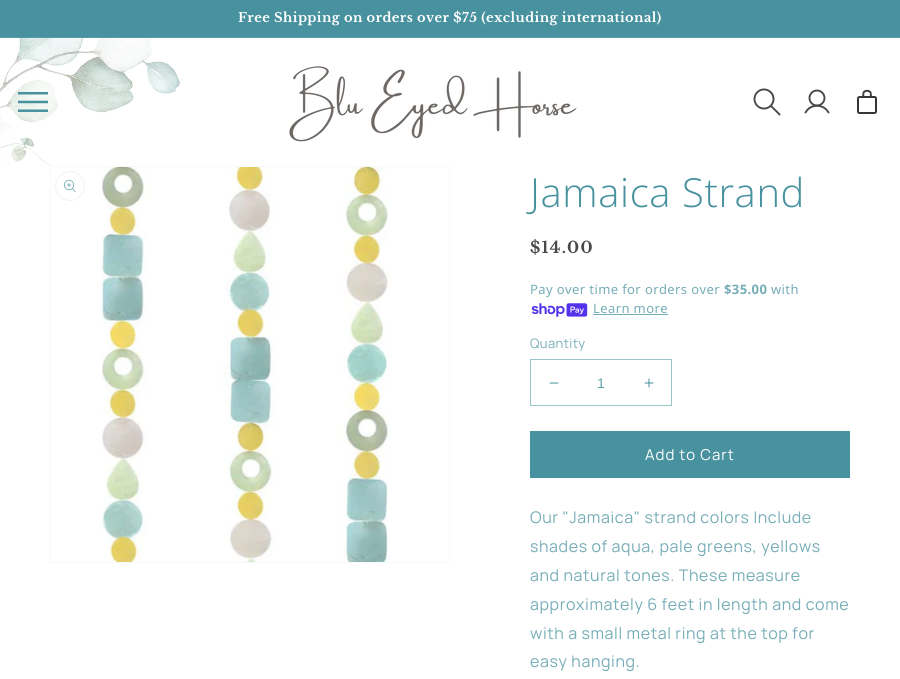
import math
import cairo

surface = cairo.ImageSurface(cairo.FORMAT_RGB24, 900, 679)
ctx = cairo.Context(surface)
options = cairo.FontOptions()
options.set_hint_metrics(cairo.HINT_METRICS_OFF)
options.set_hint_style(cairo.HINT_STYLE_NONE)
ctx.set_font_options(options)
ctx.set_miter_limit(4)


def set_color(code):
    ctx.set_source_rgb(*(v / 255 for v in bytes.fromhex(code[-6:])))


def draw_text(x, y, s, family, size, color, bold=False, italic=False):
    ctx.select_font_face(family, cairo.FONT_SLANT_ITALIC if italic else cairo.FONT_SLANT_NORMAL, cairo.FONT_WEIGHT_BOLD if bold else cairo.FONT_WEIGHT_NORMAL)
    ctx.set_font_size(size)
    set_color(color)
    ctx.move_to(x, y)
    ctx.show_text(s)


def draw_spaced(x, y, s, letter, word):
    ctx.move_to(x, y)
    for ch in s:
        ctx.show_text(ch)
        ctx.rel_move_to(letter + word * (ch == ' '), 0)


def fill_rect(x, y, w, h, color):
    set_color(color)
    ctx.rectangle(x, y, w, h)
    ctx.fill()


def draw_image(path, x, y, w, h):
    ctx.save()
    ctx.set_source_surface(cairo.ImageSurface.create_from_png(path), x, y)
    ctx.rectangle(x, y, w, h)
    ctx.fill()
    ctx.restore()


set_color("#ffffff")
ctx.paint()
fill_rect(0, 0, 900, 37, "#48929f")
fill_rect(0, 37, 900, 1, "#579ba7")
ctx.select_font_face("Libre Baskerville", cairo.FONT_SLANT_NORMAL, cairo.FONT_WEIGHT_BOLD)
ctx.set_font_size(13)
set_color("#ffffff")
draw_spaced(238, 22, "Free Shipping on orders over $75 (excluding international)", 0.4, 0)
draw_image("assets/img1.png", 0, 38, 180, 128)
draw_image("assets/img2.png", 18, 92, 30, 20)
draw_image("assets/img3.png", 289, 66, 288, 76)
draw_image("assets/img4.png", 753, 88, 28, 28)
ctx.arc(817, 98, 7.5, 0, 2 * math.pi)
set_color("#474849")
ctx.set_line_width(1.9)
ctx.stroke()
ctx.new_path()
ctx.move_to(805.5, 112.5)
ctx.curve_to(810.5, 103.5, 823.5, 103.5, 828.5, 112.5)
ctx.set_line_cap(cairo.LINE_CAP_ROUND)
ctx.set_line_join(cairo.LINE_JOIN_ROUND)
ctx.stroke()
draw_image("assets/img5.png", 857, 89, 20, 25)
ctx.rectangle(50.5, 166.5, 399, 396)
set_color("#f6fafa")
ctx.set_line_width(1)
ctx.set_line_cap(cairo.LINE_CAP_BUTT)
ctx.set_line_join(cairo.LINE_JOIN_MITER)
ctx.stroke()
draw_image("assets/img6.png", 100, 167, 291, 395)
ctx.arc(70, 186, 14.5, 0, 2 * math.pi)
set_color("#edf4f5")
ctx.stroke()
draw_image("assets/img7.png", 64, 180, 12, 12)
ctx.select_font_face("Open Sans Light")
ctx.set_font_size(40)
set_color("#48929f")
draw_spaced(530, 207, "Jamaica Strand", 0.6, 0)
ctx.select_font_face("Libre Baskerville", cairo.FONT_SLANT_NORMAL, cairo.FONT_WEIGHT_BOLD)
ctx.set_font_size(16)
set_color("#474849")
draw_spaced(530, 253, "$14.00", 1.25, 0)
ctx.select_font_face("Noto Sans")
ctx.set_font_size(13)
set_color("#76adb7")
draw_spaced(530, 294, "Pay over time for orders over", 0.4, 0)
ctx.select_font_face("Noto Sans", cairo.FONT_SLANT_NORMAL, cairo.FONT_WEIGHT_BOLD)
draw_spaced(724, 294, "$35.00", 0.4, 0)
ctx.select_font_face("Noto Sans")
draw_spaced(771, 294, "with", 0.4, 0)
draw_image("assets/img8.png", 531, 303, 57, 14)
draw_spaced(593, 313, "Learn more", 0.4, 0)
fill_rect(593, 314, 75, 1, "#76adb7")
ctx.select_font_face("Manrope")
draw_spaced(530, 348, "Quantity", 0.4, 0)
draw_image("assets/img9.png", 549, 382, 10, 2)
draw_image("assets/img10.png", 644, 378, 10, 10)
ctx.rectangle(530.5, 359.5, 141, 46)
set_color("#9ac3ca")
ctx.stroke()
draw_text(597, 388, "1", "Liberation Sans", 14, "#63a2ad")
fill_rect(530, 431, 320, 47, "#48929f")
ctx.select_font_face("Manrope")
ctx.set_font_size(15)
set_color("#ffffff")
draw_spaced(645, 460, "Add to Cart", 1, 0)
ctx.set_font_size(16)
set_color("#76adb7")
draw_spaced(530, 523, "Our \"Jamaica\" strand colors Include", 0.6, 0)
draw_spaced(530, 552, "shades of aqua, pale greens, yellows", 0.6, 0)
draw_spaced(530, 581, "and natural tones. These measure", 0.6, 0)
draw_spaced(530, 610, "approximately 6 feet in length and come", 0.6, 0)
draw_spaced(530, 639, "with a small metal ring at the top for", 0.6, 0)
draw_spaced(530, 667, "easy hanging.", 0.6, 0)
surface.write_to_png("output.png")
